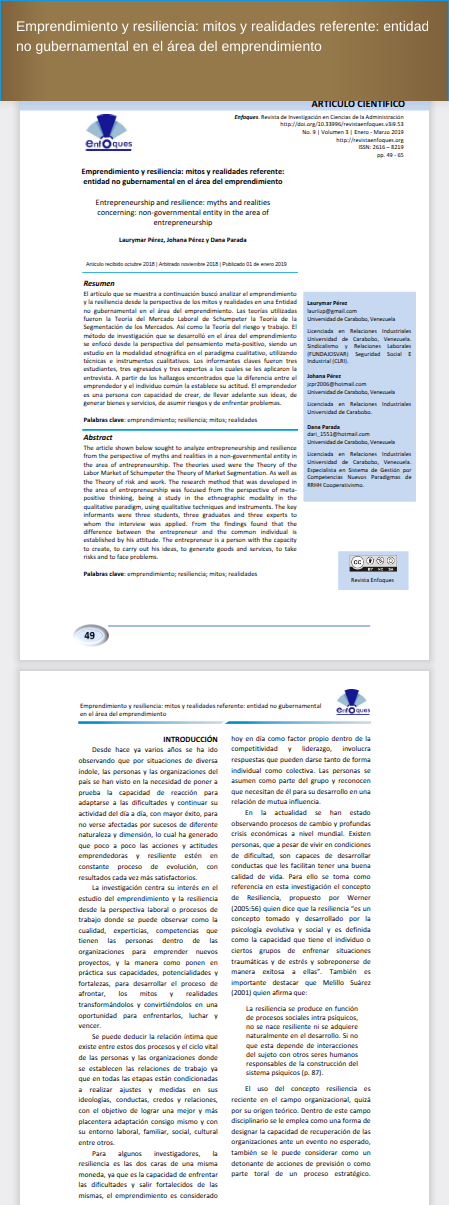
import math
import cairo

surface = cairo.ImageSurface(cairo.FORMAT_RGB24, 449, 1205)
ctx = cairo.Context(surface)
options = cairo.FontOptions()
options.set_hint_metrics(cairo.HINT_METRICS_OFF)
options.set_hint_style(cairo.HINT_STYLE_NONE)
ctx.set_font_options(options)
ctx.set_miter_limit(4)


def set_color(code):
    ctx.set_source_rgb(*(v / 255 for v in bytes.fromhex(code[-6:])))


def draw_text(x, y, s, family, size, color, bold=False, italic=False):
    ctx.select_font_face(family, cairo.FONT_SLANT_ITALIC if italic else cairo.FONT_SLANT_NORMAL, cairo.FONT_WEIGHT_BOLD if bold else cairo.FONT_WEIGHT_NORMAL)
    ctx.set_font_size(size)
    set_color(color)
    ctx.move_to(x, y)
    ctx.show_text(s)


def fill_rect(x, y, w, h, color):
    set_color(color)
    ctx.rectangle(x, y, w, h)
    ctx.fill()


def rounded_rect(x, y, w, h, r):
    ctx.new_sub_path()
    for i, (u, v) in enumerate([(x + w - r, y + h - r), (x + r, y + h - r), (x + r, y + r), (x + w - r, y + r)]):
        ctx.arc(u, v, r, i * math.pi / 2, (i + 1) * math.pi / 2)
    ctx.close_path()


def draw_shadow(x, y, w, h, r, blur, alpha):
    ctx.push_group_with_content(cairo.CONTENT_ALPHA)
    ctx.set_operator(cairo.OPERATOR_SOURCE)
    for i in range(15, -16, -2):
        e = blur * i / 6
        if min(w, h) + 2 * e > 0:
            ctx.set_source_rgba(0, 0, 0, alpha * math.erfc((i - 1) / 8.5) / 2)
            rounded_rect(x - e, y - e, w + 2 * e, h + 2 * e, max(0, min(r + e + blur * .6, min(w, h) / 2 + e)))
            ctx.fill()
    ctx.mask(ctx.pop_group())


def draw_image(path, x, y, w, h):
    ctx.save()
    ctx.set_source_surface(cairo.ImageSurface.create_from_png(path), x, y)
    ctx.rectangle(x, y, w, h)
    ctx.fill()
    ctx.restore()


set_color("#ffffff")
ctx.paint()
draw_image("assets/img1.png", 0, 101, 449, 1104)
set_color("#000000")
draw_shadow(0, 1, 449, 101, 0, 5, 0.1)
gradient = cairo.LinearGradient(1, 51, 448, 51)
gradient.add_color_stop_rgba(0, 0.498, 0.384, 0.231, 1)
gradient.add_color_stop_rgba(0.1, 0.588, 0.475, 0.29, 1)
gradient.add_color_stop_rgba(0.73, 0.588, 0.475, 0.29, 1)
gradient.add_color_stop_rgba(1, 0.498, 0.384, 0.231, 1)
ctx.set_source(gradient)
ctx.rectangle(1, 1, 447, 100)
ctx.fill()
fill_rect(0, 0, 449, 1, "#1995dc")
fill_rect(448, 0, 1, 101, "#1995dc")
fill_rect(0, 0, 1, 101, "#1995dc")
draw_text(16, 31, "Emprendimiento y resiliencia: mitos y realidades referente: entidad", "Liberation Sans", 14, "#ffffff")
draw_text(16, 51, "no gubernamental en el área del emprendimiento", "Liberation Sans", 14, "#ffffff")
surface.write_to_png("output.png")
